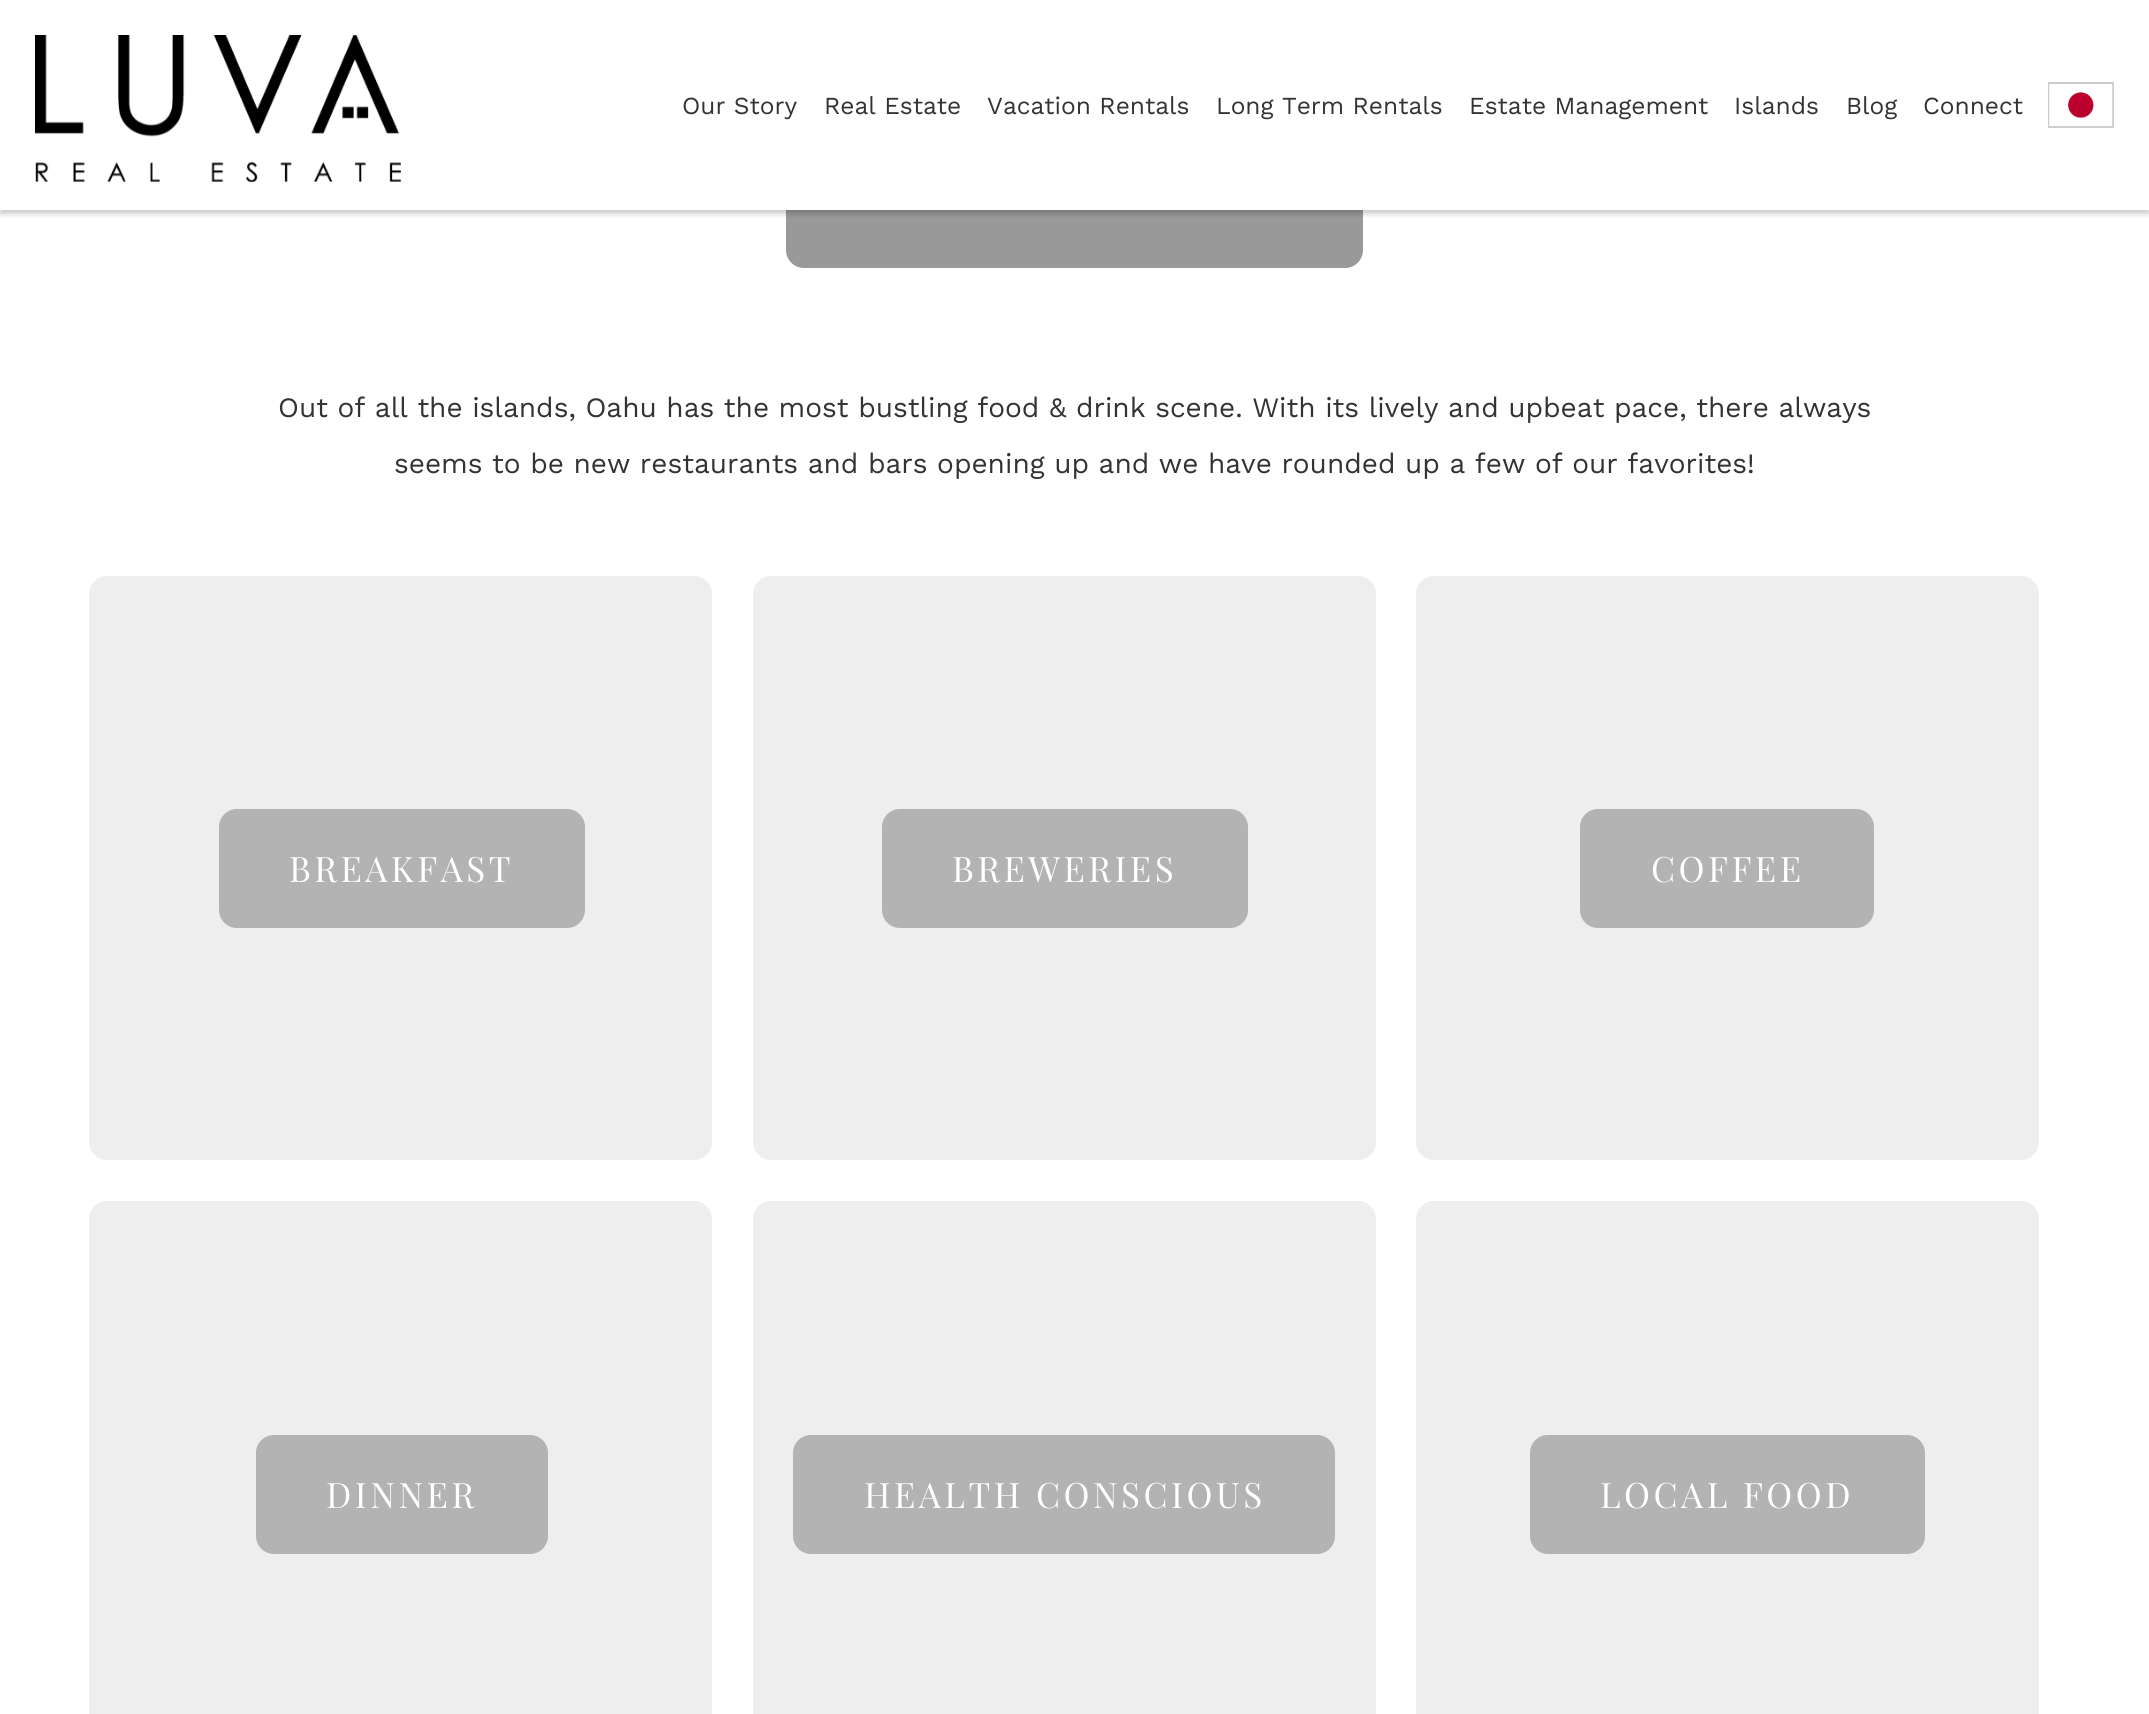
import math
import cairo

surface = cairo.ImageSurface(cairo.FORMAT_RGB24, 2149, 1714)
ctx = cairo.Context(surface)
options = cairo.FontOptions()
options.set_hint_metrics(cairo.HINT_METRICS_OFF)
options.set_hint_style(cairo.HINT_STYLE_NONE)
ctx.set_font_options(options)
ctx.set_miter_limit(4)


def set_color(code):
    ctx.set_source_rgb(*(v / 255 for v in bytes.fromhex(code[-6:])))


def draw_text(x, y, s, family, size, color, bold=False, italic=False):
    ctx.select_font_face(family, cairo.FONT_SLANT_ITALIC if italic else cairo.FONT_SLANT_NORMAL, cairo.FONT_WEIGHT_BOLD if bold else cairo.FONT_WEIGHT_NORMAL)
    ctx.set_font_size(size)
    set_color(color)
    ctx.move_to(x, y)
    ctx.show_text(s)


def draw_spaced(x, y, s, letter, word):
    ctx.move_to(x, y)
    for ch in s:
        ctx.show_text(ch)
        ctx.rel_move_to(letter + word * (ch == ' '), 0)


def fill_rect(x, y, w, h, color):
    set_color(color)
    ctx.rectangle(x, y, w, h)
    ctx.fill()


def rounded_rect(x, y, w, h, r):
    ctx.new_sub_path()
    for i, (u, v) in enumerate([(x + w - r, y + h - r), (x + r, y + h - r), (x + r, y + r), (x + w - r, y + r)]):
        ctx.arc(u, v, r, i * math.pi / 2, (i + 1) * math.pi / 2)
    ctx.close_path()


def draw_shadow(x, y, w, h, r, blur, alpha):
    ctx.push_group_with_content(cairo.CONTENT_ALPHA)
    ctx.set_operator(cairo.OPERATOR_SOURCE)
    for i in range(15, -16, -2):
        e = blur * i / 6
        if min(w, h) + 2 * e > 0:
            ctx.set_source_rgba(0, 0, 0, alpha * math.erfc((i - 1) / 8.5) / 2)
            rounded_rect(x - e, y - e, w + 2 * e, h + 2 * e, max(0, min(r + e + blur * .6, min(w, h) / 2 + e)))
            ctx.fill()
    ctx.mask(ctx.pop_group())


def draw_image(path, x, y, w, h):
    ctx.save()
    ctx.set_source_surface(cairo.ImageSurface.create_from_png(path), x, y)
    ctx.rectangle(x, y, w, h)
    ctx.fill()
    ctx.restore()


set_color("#ffffff")
ctx.paint()
ctx.set_source_rgba(0, 0, 0, 0.4)
rounded_rect(786, -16, 577, 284, 18)
ctx.fill()
set_color("#000000")
draw_shadow(0, 4, 2149, 210, 0, 2.5, 0.2)
fill_rect(0, 0, 2149, 210, "#ffffff")
draw_image("assets/img1.png", 35, 35, 366, 147)
draw_text(682, 114, "Our Story", "Work Sans", 24.5, "#333333")
draw_text(824, 114, "Real Estate", "Work Sans", 24.5, "#333333")
draw_text(987, 114, "Vacation Rentals", "Work Sans", 24.5, "#333333")
draw_text(1216, 114, "Long Term Rentals", "Work Sans", 24.5, "#333333")
draw_text(1469, 114, "Estate Management", "Work Sans", 24.5, "#333333")
draw_text(1734, 114, "Islands", "Work Sans", 24.5, "#333333")
draw_text(1846, 114, "Blog", "Work Sans", 24.5, "#333333")
draw_text(1923, 114, "Connect", "Work Sans", 24.5, "#333333")
ctx.rectangle(2049, 83, 64, 44)
set_color("#cccccc")
ctx.stroke()
draw_image("assets/img2.png", 2049, 84, 64, 43)
draw_text(278, 417, "Out of all the islands, Oahu has the most bustling food & drink scene. With its lively and upbeat pace, there always", "Work Sans", 28, "#333333")
draw_text(394, 473, "seems to be new restaurants and bars opening up and we have rounded up a few of our favorites!", "Work Sans", 28, "#333333")
set_color("#eeeeee")
rounded_rect(89, 576, 623, 584, 18)
ctx.fill()
set_color("#b3b3b3")
rounded_rect(219, 809, 366, 119, 18)
ctx.fill()
ctx.select_font_face("Playfair Display")
ctx.set_font_size(35)
set_color("#ffffff")
draw_spaced(289, 882, "BREAKFAST", 3.5, 0)
set_color("#eeeeee")
rounded_rect(753, 576, 623, 584, 18)
ctx.fill()
set_color("#b3b3b3")
rounded_rect(882, 809, 366, 119, 18)
ctx.fill()
set_color("#ffffff")
draw_spaced(952, 882, "BREWERIES", 3.5, 0)
set_color("#eeeeee")
rounded_rect(1416, 576, 623, 584, 18)
ctx.fill()
set_color("#b3b3b3")
rounded_rect(1580, 809, 294, 119, 18)
ctx.fill()
set_color("#ffffff")
draw_spaced(1651, 882, "COFFEE", 3.5, 0)
set_color("#eeeeee")
rounded_rect(89, 1201, 623, 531, 18)
ctx.fill()
set_color("#b3b3b3")
rounded_rect(256, 1435, 292, 119, 18)
ctx.fill()
set_color("#ffffff")
draw_spaced(326, 1508, "DINNER", 3.5, 0)
set_color("#eeeeee")
rounded_rect(753, 1201, 623, 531, 18)
ctx.fill()
set_color("#b3b3b3")
rounded_rect(793, 1435, 542, 119, 18)
ctx.fill()
set_color("#ffffff")
draw_spaced(864, 1508, "HEALTH CONSCIOUS", 3.5, 0)
set_color("#eeeeee")
rounded_rect(1416, 1201, 623, 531, 18)
ctx.fill()
set_color("#b3b3b3")
rounded_rect(1530, 1435, 395, 119, 18)
ctx.fill()
set_color("#ffffff")
draw_spaced(1600, 1508, "LOCAL FOOD", 3.5, 0)
surface.write_to_png("output.png")
